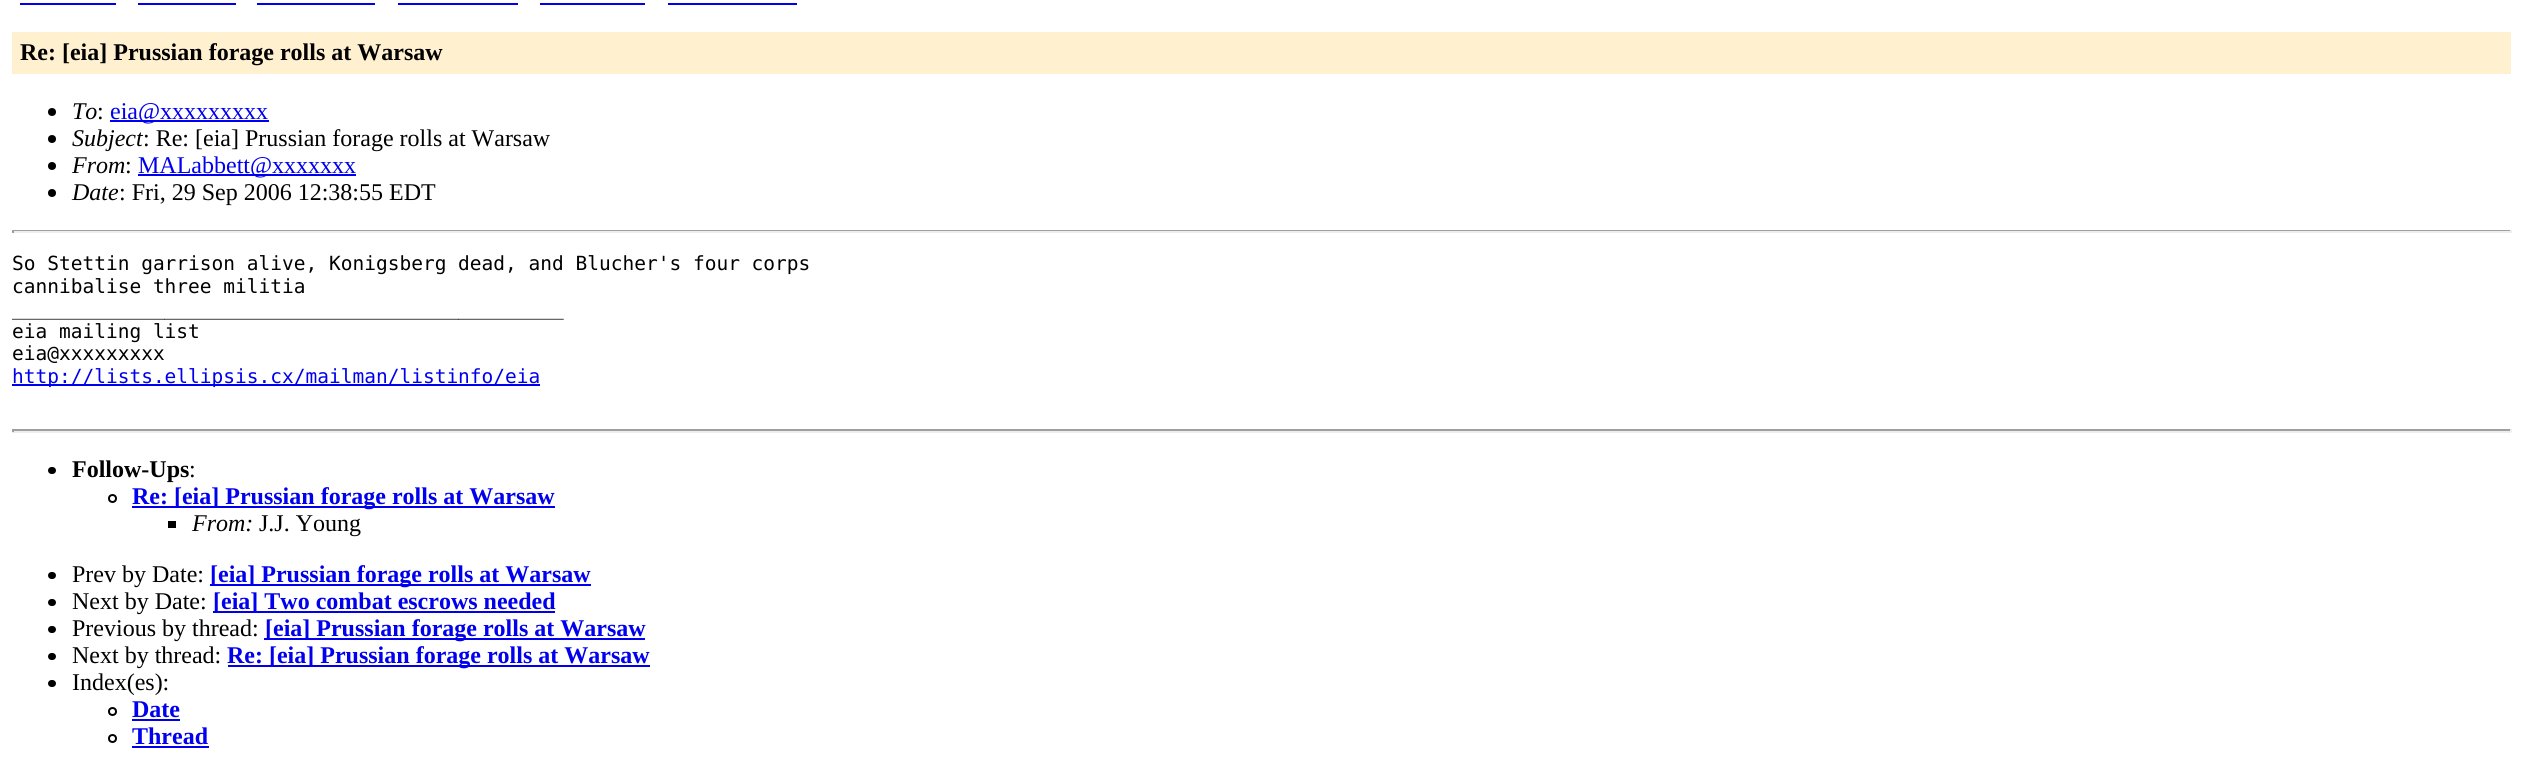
import math
import cairo

surface = cairo.ImageSurface(cairo.FORMAT_RGB24, 2522, 774)
ctx = cairo.Context(surface)
options = cairo.FontOptions()
options.set_hint_metrics(cairo.HINT_METRICS_OFF)
options.set_hint_style(cairo.HINT_STYLE_NONE)
ctx.set_font_options(options)
ctx.set_miter_limit(4)


def set_color(code):
    ctx.set_source_rgb(*(v / 255 for v in bytes.fromhex(code[-6:])))


def draw_text(x, y, s, family, size, color, bold=False, italic=False):
    ctx.select_font_face(family, cairo.FONT_SLANT_ITALIC if italic else cairo.FONT_SLANT_NORMAL, cairo.FONT_WEIGHT_BOLD if bold else cairo.FONT_WEIGHT_NORMAL)
    ctx.set_font_size(size)
    set_color(color)
    ctx.move_to(x, y)
    ctx.show_text(s)


def fill_rect(x, y, w, h, color):
    set_color(color)
    ctx.rectangle(x, y, w, h)
    ctx.fill()


def rounded_rect(x, y, w, h, r):
    ctx.new_sub_path()
    for i, (u, v) in enumerate([(x + w - r, y + h - r), (x + r, y + h - r), (x + r, y + r), (x + w - r, y + r)]):
        ctx.arc(u, v, r, i * math.pi / 2, (i + 1) * math.pi / 2)
    ctx.close_path()


set_color("#ffffff")
ctx.paint()
fill_rect(20, 3, 96, 2, "#0000ee")
fill_rect(138, 3, 98, 2, "#0000ee")
fill_rect(257, 3, 118, 2, "#0000ee")
fill_rect(398, 3, 120, 2, "#0000ee")
fill_rect(540, 3, 105, 2, "#0000ee")
fill_rect(668, 3, 129, 2, "#0000ee")
fill_rect(12, 32, 2499, 42, "#fff0d0")
draw_text(20, 60, "Re: [eia] Prussian forage rolls at Warsaw", "Liberation Serif", 24, "#000000", bold=True)
ctx.new_path()
ctx.arc(52, 112, 4, 0, 2 * math.pi)
ctx.fill()
draw_text(72, 119, "To", "Liberation Serif", 24, "#000000", italic=True)
draw_text(97, 119, ":", "Liberation Serif", 24, "#000000")
fill_rect(110, 120, 159, 2, "#0000ee")
draw_text(110, 119, "eia@xxxxxxxxx", "Liberation Serif", 24, "#0000ee")
set_color("#000000")
ctx.new_path()
ctx.arc(52, 139, 4, 0, 2 * math.pi)
ctx.fill()
draw_text(72, 146, "Subject", "Liberation Serif", 24, "#000000", italic=True)
draw_text(143, 146, ": Re: [eia] Prussian forage rolls at Warsaw", "Liberation Serif", 24, "#000000")
ctx.new_path()
ctx.arc(52, 166, 4, 0, 2 * math.pi)
ctx.fill()
draw_text(72, 173, "From", "Liberation Serif", 24, "#000000", italic=True)
draw_text(125, 173, ":", "Liberation Serif", 24, "#000000")
fill_rect(138, 174, 218, 2, "#0000ee")
draw_text(138, 173, "MALabbett@xxxxxxx", "Liberation Serif", 24, "#0000ee")
set_color("#000000")
ctx.new_path()
ctx.arc(52, 193, 4, 0, 2 * math.pi)
ctx.fill()
draw_text(72, 200, "Date", "Liberation Serif", 24, "#000000", italic=True)
draw_text(119, 200, ": Fri, 29 Sep 2006 12:38:55 EDT", "Liberation Serif", 24, "#000000")
fill_rect(12, 230, 2499, 1, "#9f9f9f")
fill_rect(2510, 230, 2, 3, "#eeeeee")
fill_rect(12, 231, 2499, 2, "#eeeeee")
fill_rect(12, 230, 2, 3, "#9f9f9f")
draw_text(12, 270, "So Stettin garrison alive, Konigsberg dead, and Blucher's four corps", "DejaVu Sans Mono", 19.5, "#000000")
draw_text(12, 293, "cannibalise three militia", "DejaVu Sans Mono", 19.5, "#000000")
draw_text(12, 315, "_______________________________________________", "DejaVu Sans Mono", 19.5, "#000000")
draw_text(12, 338, "eia mailing list", "DejaVu Sans Mono", 19.5, "#000000")
draw_text(12, 360, "eia@xxxxxxxxx", "DejaVu Sans Mono", 19.5, "#000000")
fill_rect(12, 384, 528, 2, "#0000ee")
draw_text(12, 383, "http://lists.ellipsis.cx/mailman/listinfo/eia", "DejaVu Sans Mono", 19.5, "#0000ee")
fill_rect(12, 429, 2499, 2, "#9f9f9f")
fill_rect(2510, 429, 2, 3, "#eeeeee")
fill_rect(12, 431, 2499, 2, "#eeeeee")
fill_rect(12, 429, 2, 3, "#9f9f9f")
set_color("#000000")
rounded_rect(48, 467, 8, 7, 3.5)
ctx.fill()
draw_text(72, 477, "Follow-Ups", "Liberation Serif", 24, "#000000", bold=True)
draw_text(189, 477, ":", "Liberation Serif", 24, "#000000")
ctx.new_path()
ctx.arc(112.5, 498.5, 3.5, 0, 2 * math.pi)
ctx.stroke()
fill_rect(132, 506, 423, 2, "#0000ee")
draw_text(132, 504, "Re: [eia] Prussian forage rolls at Warsaw", "Liberation Serif", 24, "#0000ee", bold=True)
fill_rect(168, 521, 8, 7, "#000000")
draw_text(192, 531, "From:", "Liberation Serif", 24, "#000000", italic=True)
draw_text(259, 531, "J.J. Young", "Liberation Serif", 24, "#000000")
rounded_rect(48, 572, 8, 7, 3.5)
ctx.fill()
draw_text(72, 582, "Prev by Date:", "Liberation Serif", 24, "#000000")
fill_rect(210, 584, 381, 2, "#0000ee")
draw_text(210, 582, "[eia] Prussian forage rolls at Warsaw", "Liberation Serif", 24, "#0000ee", bold=True)
set_color("#000000")
rounded_rect(48, 599, 8, 7, 3.5)
ctx.fill()
draw_text(72, 609, "Next by Date:", "Liberation Serif", 24, "#000000")
fill_rect(213, 611, 342, 2, "#0000ee")
draw_text(213, 609, "[eia] Two combat escrows needed", "Liberation Serif", 24, "#0000ee", bold=True)
set_color("#000000")
rounded_rect(48, 626, 8, 7, 3.5)
ctx.fill()
draw_text(72, 636, "Previous by thread:", "Liberation Serif", 24, "#000000")
fill_rect(264, 638, 381, 2, "#0000ee")
draw_text(265, 636, "[eia] Prussian forage rolls at Warsaw", "Liberation Serif", 24, "#0000ee", bold=True)
set_color("#000000")
rounded_rect(48, 653, 8, 7, 3.5)
ctx.fill()
draw_text(72, 663, "Next by thread:", "Liberation Serif", 24, "#000000")
fill_rect(228, 665, 422, 2, "#0000ee")
draw_text(227, 663, "Re: [eia] Prussian forage rolls at Warsaw", "Liberation Serif", 24, "#0000ee", bold=True)
set_color("#000000")
rounded_rect(48, 680, 8, 7, 3.5)
ctx.fill()
draw_text(72, 690, "Index(es):", "Liberation Serif", 24, "#000000")
ctx.new_path()
ctx.arc(112.5, 711.5, 3.5, 0, 2 * math.pi)
ctx.stroke()
draw_text(132, 717, "Date", "Liberation Serif", 24, "#0000ee", bold=True)
fill_rect(132, 719, 48, 2, "#0000ee")
ctx.new_path()
ctx.arc(112.5, 738.5, 3.5, 0, 2 * math.pi)
set_color("#000000")
ctx.stroke()
draw_text(132, 744, "Thread", "Liberation Serif", 24, "#0000ee", bold=True)
fill_rect(132, 746, 77, 2, "#0000ee")
surface.write_to_png("output.png")
